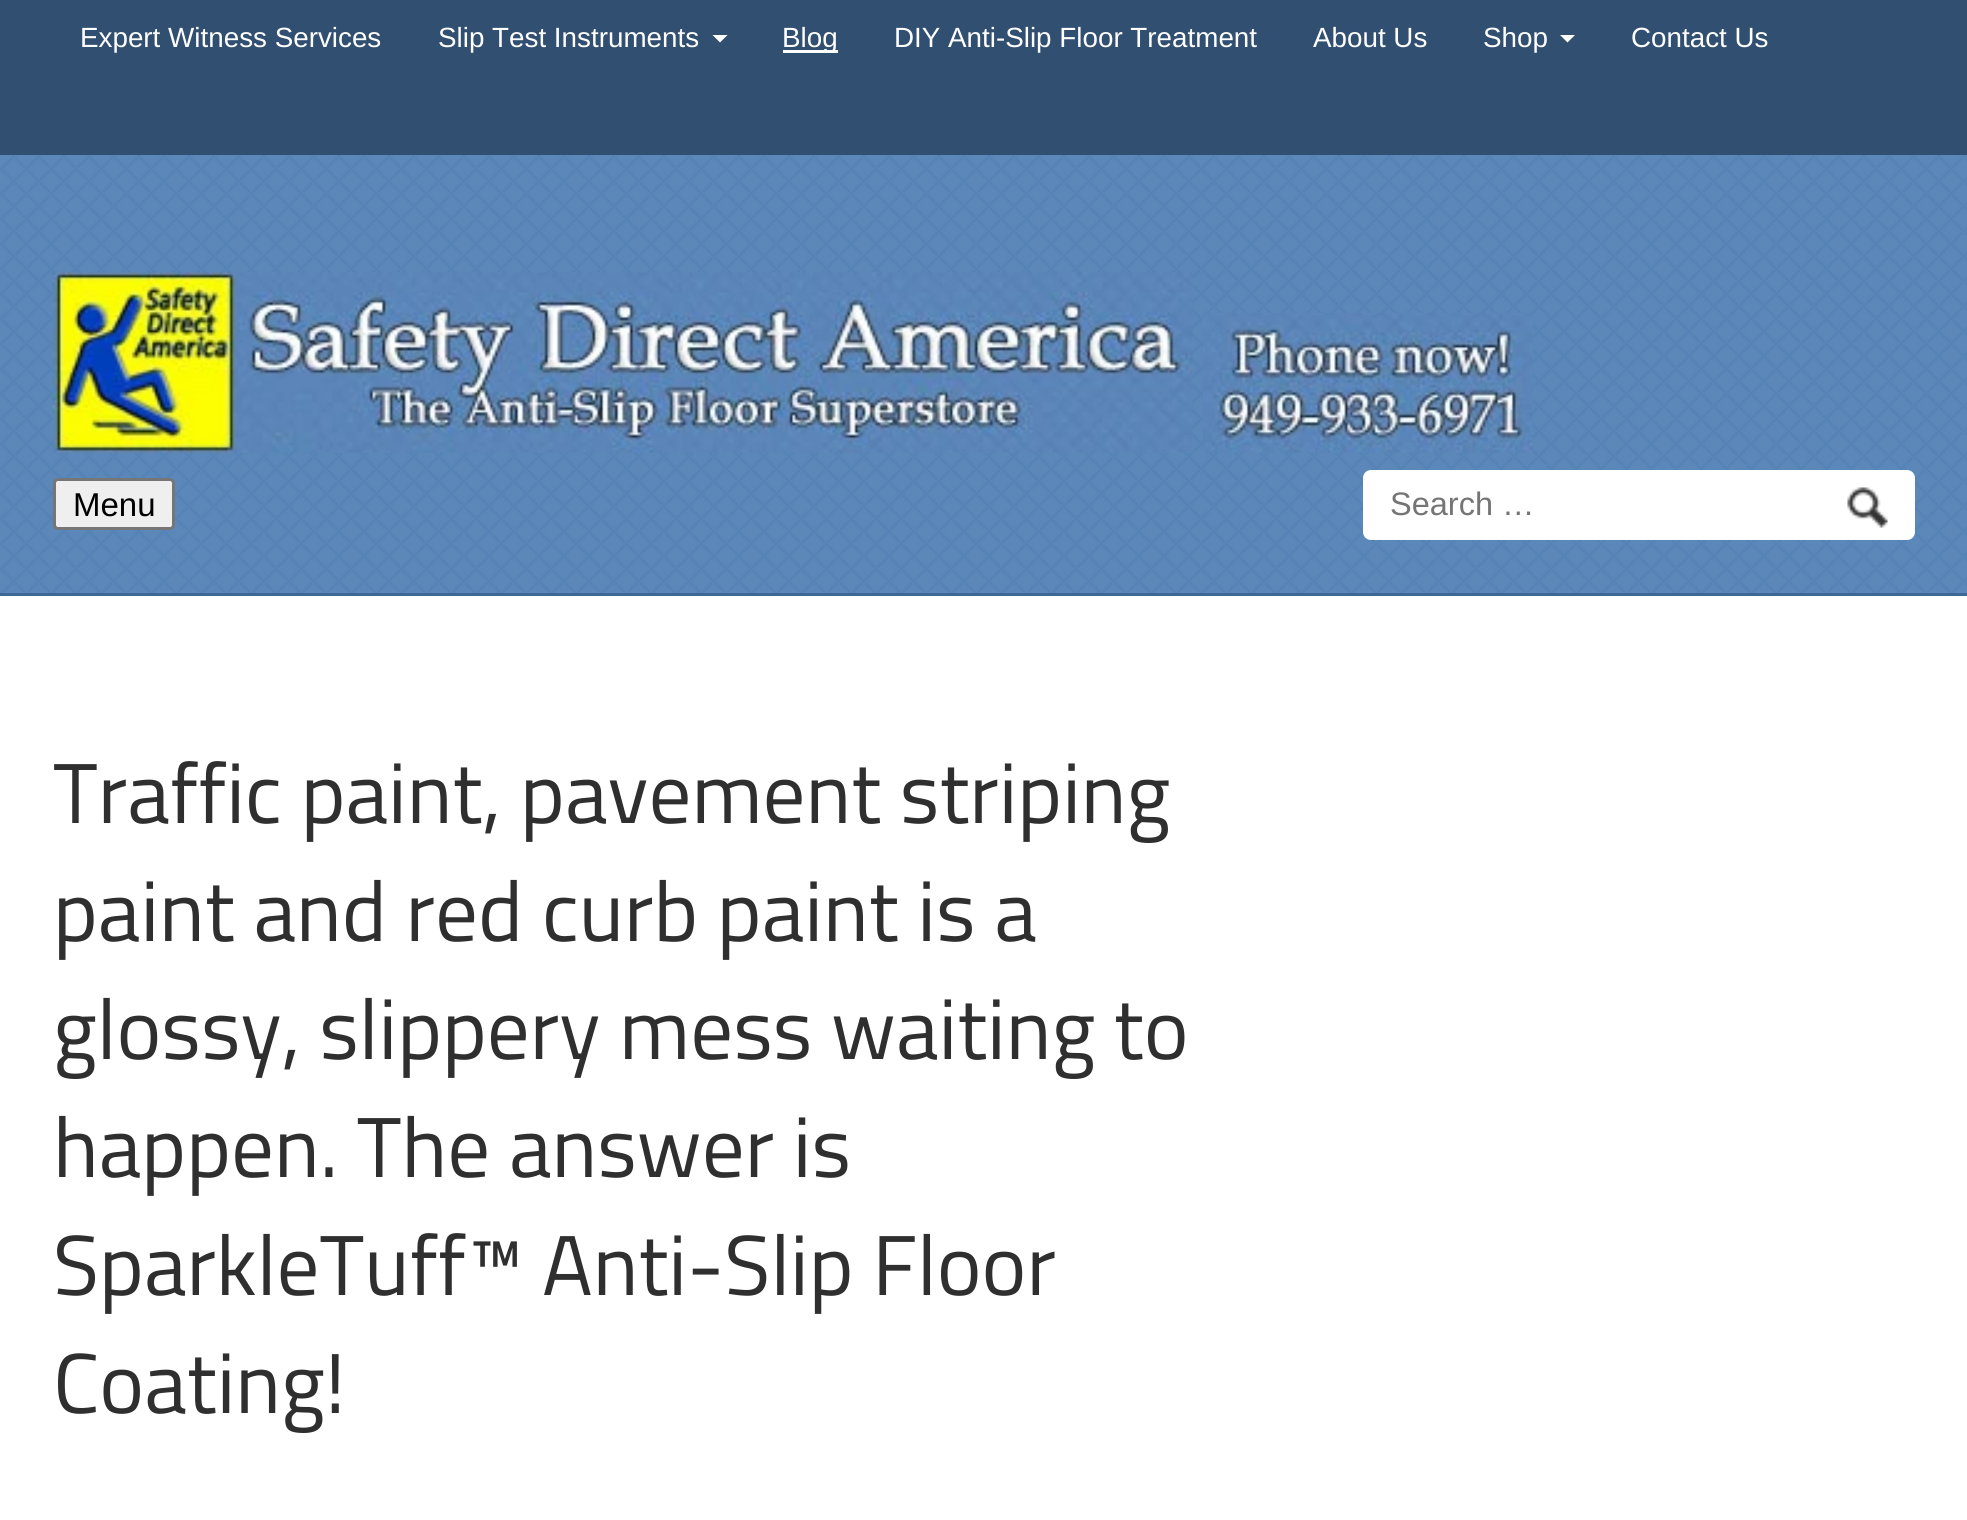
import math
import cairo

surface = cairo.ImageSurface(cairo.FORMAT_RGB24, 1967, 1520)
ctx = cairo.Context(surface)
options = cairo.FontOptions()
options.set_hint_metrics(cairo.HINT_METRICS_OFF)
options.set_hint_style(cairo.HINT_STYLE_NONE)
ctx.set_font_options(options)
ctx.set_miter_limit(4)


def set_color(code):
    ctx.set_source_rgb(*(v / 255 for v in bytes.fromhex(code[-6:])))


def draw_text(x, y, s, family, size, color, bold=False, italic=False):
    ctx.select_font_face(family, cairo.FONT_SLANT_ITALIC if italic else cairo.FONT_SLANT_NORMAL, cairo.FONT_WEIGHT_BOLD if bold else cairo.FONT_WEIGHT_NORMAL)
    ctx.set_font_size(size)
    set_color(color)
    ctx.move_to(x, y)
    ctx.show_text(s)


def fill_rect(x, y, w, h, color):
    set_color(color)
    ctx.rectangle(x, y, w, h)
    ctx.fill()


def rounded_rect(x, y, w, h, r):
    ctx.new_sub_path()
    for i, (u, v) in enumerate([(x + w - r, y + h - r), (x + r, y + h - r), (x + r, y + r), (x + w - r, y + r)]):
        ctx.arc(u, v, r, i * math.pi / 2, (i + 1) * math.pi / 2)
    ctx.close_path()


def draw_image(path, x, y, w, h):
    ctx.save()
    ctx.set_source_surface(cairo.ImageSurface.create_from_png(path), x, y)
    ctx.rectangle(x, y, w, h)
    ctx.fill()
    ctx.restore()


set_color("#ffffff")
ctx.paint()
fill_rect(0, 0, 1967, 155, "#314f71")
draw_text(80, 47, "Expert Witness Services", "Liberation Sans", 27.8, "#ffffff")
draw_text(438, 47, "Slip Test Instruments", "Liberation Sans", 27.8, "#ffffff")
ctx.new_path()
ctx.move_to(712.5, 35)
ctx.line_to(727.5, 35)
ctx.line_to(720, 42.5)
ctx.close_path()
ctx.fill()
fill_rect(783, 50, 55, 3, "#ffffff")
draw_text(782, 47, "Blog", "Liberation Sans", 27.8, "#ffffff")
draw_text(894, 47, "DIY Anti-Slip Floor Treatment", "Liberation Sans", 27.8, "#ffffff")
draw_text(1313, 47, "About Us", "Liberation Sans", 27.8, "#ffffff")
draw_text(1483, 47, "Shop", "Liberation Sans", 27.8, "#ffffff")
ctx.new_path()
ctx.move_to(1560, 35)
ctx.line_to(1575, 35)
ctx.line_to(1567.5, 42.5)
ctx.close_path()
ctx.fill()
draw_text(1631, 47, "Contact Us", "Liberation Sans", 27.8, "#ffffff")
fill_rect(0, 155, 1967, 438, "#5381b5")
draw_image("assets/img1.png", 0, 155, 1967, 438)
fill_rect(0, 593, 1967, 3, "#406895")
draw_image("assets/img2.png", 52, 272, 1141, 181)
draw_image("assets/img3.png", 1203, 313, 330, 140)
set_color("#efefef")
rounded_rect(54.5, 479.5, 119, 49, 3.5)
ctx.fill_preserve()
set_color("#767676")
ctx.set_line_width(3)
ctx.stroke()
draw_text(73, 516, "Menu", "Liberation Sans", 33, "#000000")
set_color("#ffffff")
rounded_rect(1363, 470, 552, 70, 8)
ctx.fill()
draw_text(1390, 515, "Search …", "Liberation Sans", 32.5, "#757575")
draw_image("assets/img4.png", 1847, 487, 41, 41)
draw_text(53, 823, "Traffic paint, pavement striping", "Titillium Web", 85.1, "#2f2f2f")
draw_text(53, 941, "paint and red curb paint is a", "Titillium Web", 85.1, "#2f2f2f")
draw_text(53, 1059, "glossy, slippery mess waiting to", "Titillium Web", 85.1, "#2f2f2f")
draw_text(53, 1177, "happen. The answer is", "Titillium Web", 85.1, "#2f2f2f")
draw_text(53, 1295, "SparkleTuff™ Anti-Slip Floor", "Titillium Web", 85.1, "#2f2f2f")
draw_text(53, 1413, "Coating!", "Titillium Web", 85.1, "#2f2f2f")
surface.write_to_png("output.png")
